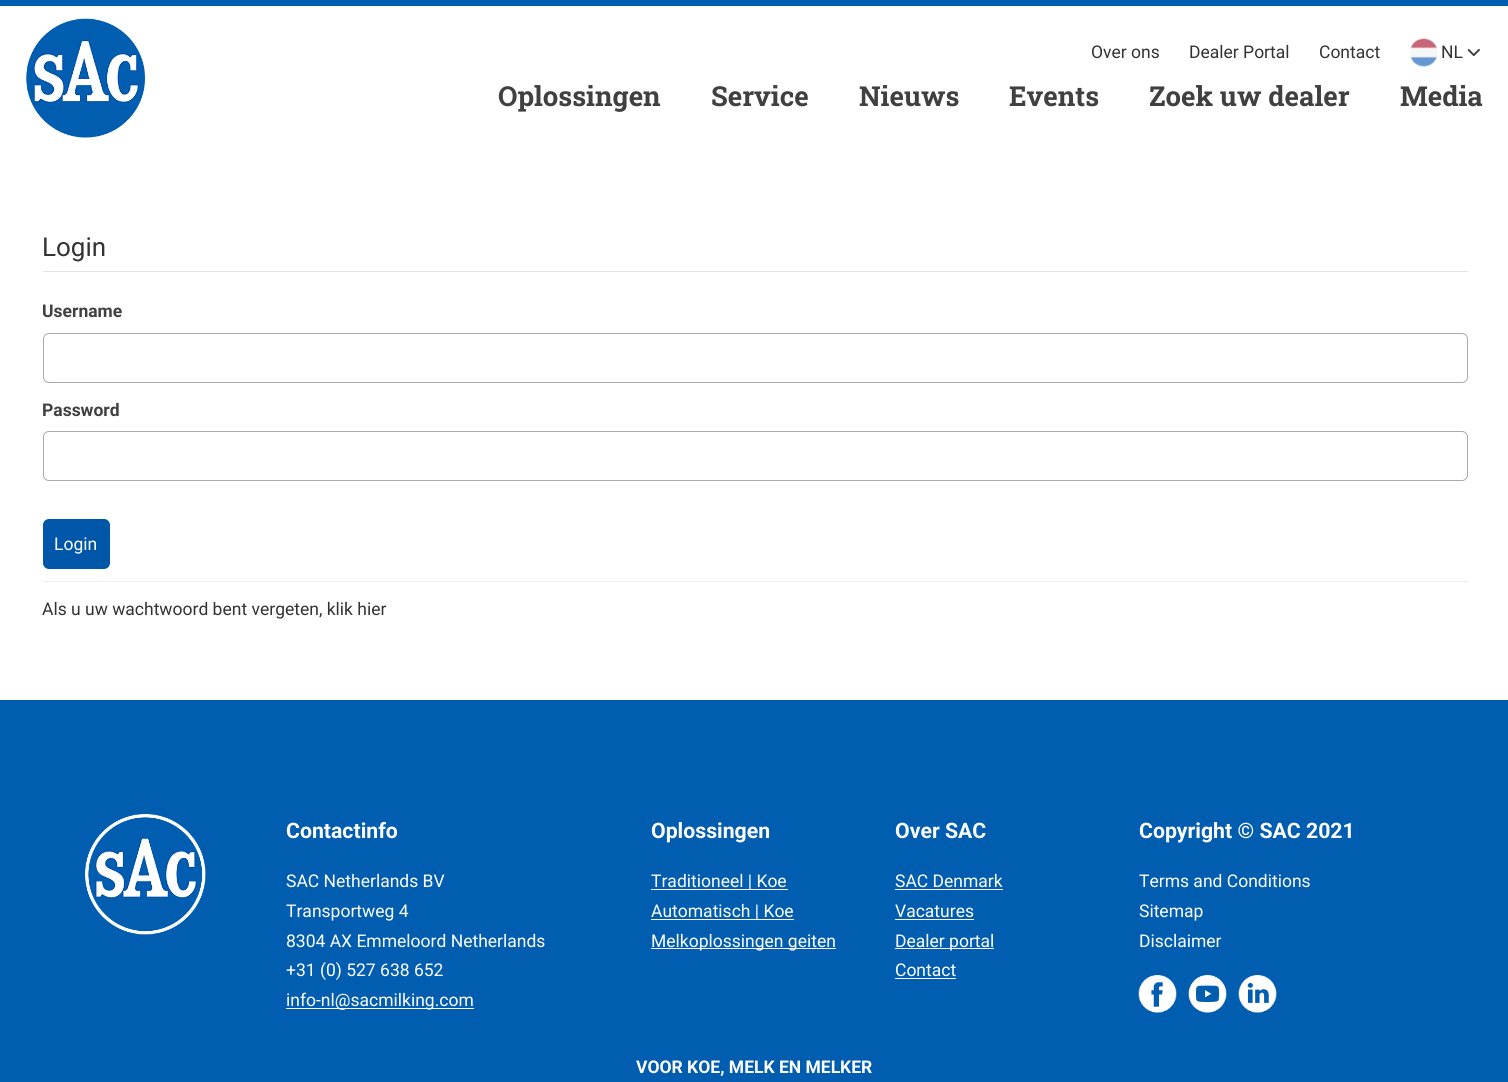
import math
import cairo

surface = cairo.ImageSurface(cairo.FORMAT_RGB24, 1508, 1082)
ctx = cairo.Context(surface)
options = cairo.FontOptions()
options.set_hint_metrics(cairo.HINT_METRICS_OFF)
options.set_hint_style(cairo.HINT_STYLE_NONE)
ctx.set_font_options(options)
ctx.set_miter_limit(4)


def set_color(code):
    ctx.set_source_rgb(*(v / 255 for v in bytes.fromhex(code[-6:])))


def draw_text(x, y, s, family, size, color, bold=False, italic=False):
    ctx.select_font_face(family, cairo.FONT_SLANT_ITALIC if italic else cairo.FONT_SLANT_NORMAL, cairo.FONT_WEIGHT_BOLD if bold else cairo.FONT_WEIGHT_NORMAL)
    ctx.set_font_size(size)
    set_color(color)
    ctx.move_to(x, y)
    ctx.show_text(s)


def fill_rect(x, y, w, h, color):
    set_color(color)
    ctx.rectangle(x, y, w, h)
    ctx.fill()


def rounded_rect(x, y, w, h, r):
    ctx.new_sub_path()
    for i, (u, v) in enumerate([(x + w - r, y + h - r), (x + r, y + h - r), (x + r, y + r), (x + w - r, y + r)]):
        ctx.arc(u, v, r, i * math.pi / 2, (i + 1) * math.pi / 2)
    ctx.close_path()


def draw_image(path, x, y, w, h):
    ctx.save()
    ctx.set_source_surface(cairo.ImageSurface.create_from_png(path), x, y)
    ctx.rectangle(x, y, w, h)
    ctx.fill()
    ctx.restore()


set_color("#ffffff")
ctx.paint()
fill_rect(0, 0, 1508, 6, "#005daf")
draw_text(1091, 58, "Over ons", "Roboto", 17.5, "#333333")
draw_text(1189, 58, "Dealer Portal", "Roboto", 17.5, "#333333")
draw_text(1319, 58, "Contact", "Roboto", 17.5, "#333333")
draw_image("assets/img1.png", 1410, 38, 28, 29)
draw_text(1441, 58, "NL", "Roboto", 17.5, "#333333")
draw_image("assets/img2.png", 1468, 49, 12, 7)
draw_image("assets/img3.png", 26, 18, 119, 120)
draw_text(498, 106, "Oplossingen", "Roboto Slab", 27.5, "#404040", bold=True)
draw_text(711, 106, "Service", "Roboto Slab", 27.5, "#404040", bold=True)
draw_text(859, 106, "Nieuws", "Roboto Slab", 27.5, "#404040", bold=True)
draw_text(1009, 106, "Events", "Roboto Slab", 27.5, "#404040", bold=True)
draw_text(1149, 106, "Zoek uw dealer", "Roboto Slab", 27.5, "#404040", bold=True)
draw_text(1400, 106, "Media", "Roboto Slab", 27.5, "#404040", bold=True)
fill_rect(43, 271, 1425, 1, "#e5e5e5")
draw_text(42, 256, "Login", "Roboto", 26, "#333333")
draw_text(42, 317, "Username", "Roboto", 17.5, "#404040", bold=True)
rounded_rect(43.5, 333.5, 1424, 49, 5.5)
set_color("#aaaaaa")
ctx.set_line_width(1)
ctx.stroke()
draw_text(42, 416, "Password", "Roboto", 17.5, "#404040", bold=True)
rounded_rect(43.5, 431.5, 1424, 49, 5.5)
set_color("#aaaaaa")
ctx.stroke()
set_color("#0057a9")
rounded_rect(43, 519, 67, 50, 6)
ctx.fill()
draw_text(54, 550, "Login", "Roboto", 17.5, "#ffffff")
fill_rect(43, 581, 1425, 1, "#eeeeee")
draw_text(42, 615, "Als u uw wachtwoord bent vergeten, klik hier", "Roboto", 17.5, "#333333")
fill_rect(0, 700, 1508, 382, "#005daf")
draw_image("assets/img4.png", 85, 814, 121, 121)
draw_text(286, 838, "Contactinfo", "Roboto", 21.25, "#ffffff", bold=True)
draw_text(286, 887, "SAC Netherlands BV", "Roboto", 17.5, "#ffffff")
draw_text(286, 917, "Transportweg 4", "Roboto", 17.5, "#ffffff")
draw_text(286, 947, "8304 AX Emmeloord Netherlands", "Roboto", 17.5, "#ffffff")
draw_text(286, 976, "+31 (0) 527 638 652", "Roboto", 17.5, "#ffffff")
fill_rect(286, 1008, 188, 1, "#ffffff")
draw_text(286, 1006, "info-nl@sacmilking.com", "Roboto", 17.5, "#ffffff")
draw_text(651, 838, "Oplossingen", "Roboto", 21.25, "#ffffff", bold=True)
fill_rect(651, 889, 137, 1, "#ffffff")
draw_text(651, 887, "Traditioneel | Koe", "Roboto", 17.5, "#ffffff")
fill_rect(651, 919, 143, 1, "#ffffff")
draw_text(651, 917, "Automatisch | Koe", "Roboto", 17.5, "#ffffff")
fill_rect(651, 948, 185, 1, "#ffffff")
draw_text(651, 947, "Melkoplossingen geiten", "Roboto", 17.5, "#ffffff")
draw_text(895, 838, "Over SAC", "Roboto", 21.25, "#ffffff", bold=True)
draw_text(895, 887, "SAC Denmark", "Roboto", 17.5, "#ffffff")
fill_rect(895, 889, 108, 1, "#ffffff")
draw_text(895, 917, "Vacatures", "Roboto", 17.5, "#ffffff")
fill_rect(895, 919, 79, 1, "#ffffff")
fill_rect(895, 948, 99, 1, "#ffffff")
draw_text(895, 947, "Dealer portal", "Roboto", 17.5, "#ffffff")
draw_text(895, 976, "Contact", "Roboto", 17.5, "#ffffff")
fill_rect(895, 978, 61, 1, "#ffffff")
draw_text(1139, 838, "Copyright © SAC 2021", "Roboto", 21.25, "#ffffff", bold=True)
draw_text(1139, 887, "Terms and Conditions", "Roboto", 17.5, "#ffffff")
draw_text(1139, 917, "Sitemap", "Roboto", 17.5, "#ffffff")
draw_text(1139, 947, "Disclaimer", "Roboto", 17.5, "#ffffff")
draw_image("assets/img5.png", 1138, 975, 39, 38)
draw_image("assets/img6.png", 1188, 975, 39, 38)
draw_image("assets/img7.png", 1238, 975, 39, 38)
draw_text(636, 1073, "VOOR KOE, MELK EN MELKER", "Roboto", 17.5, "#ffffff", bold=True)
surface.write_to_png("output.png")
